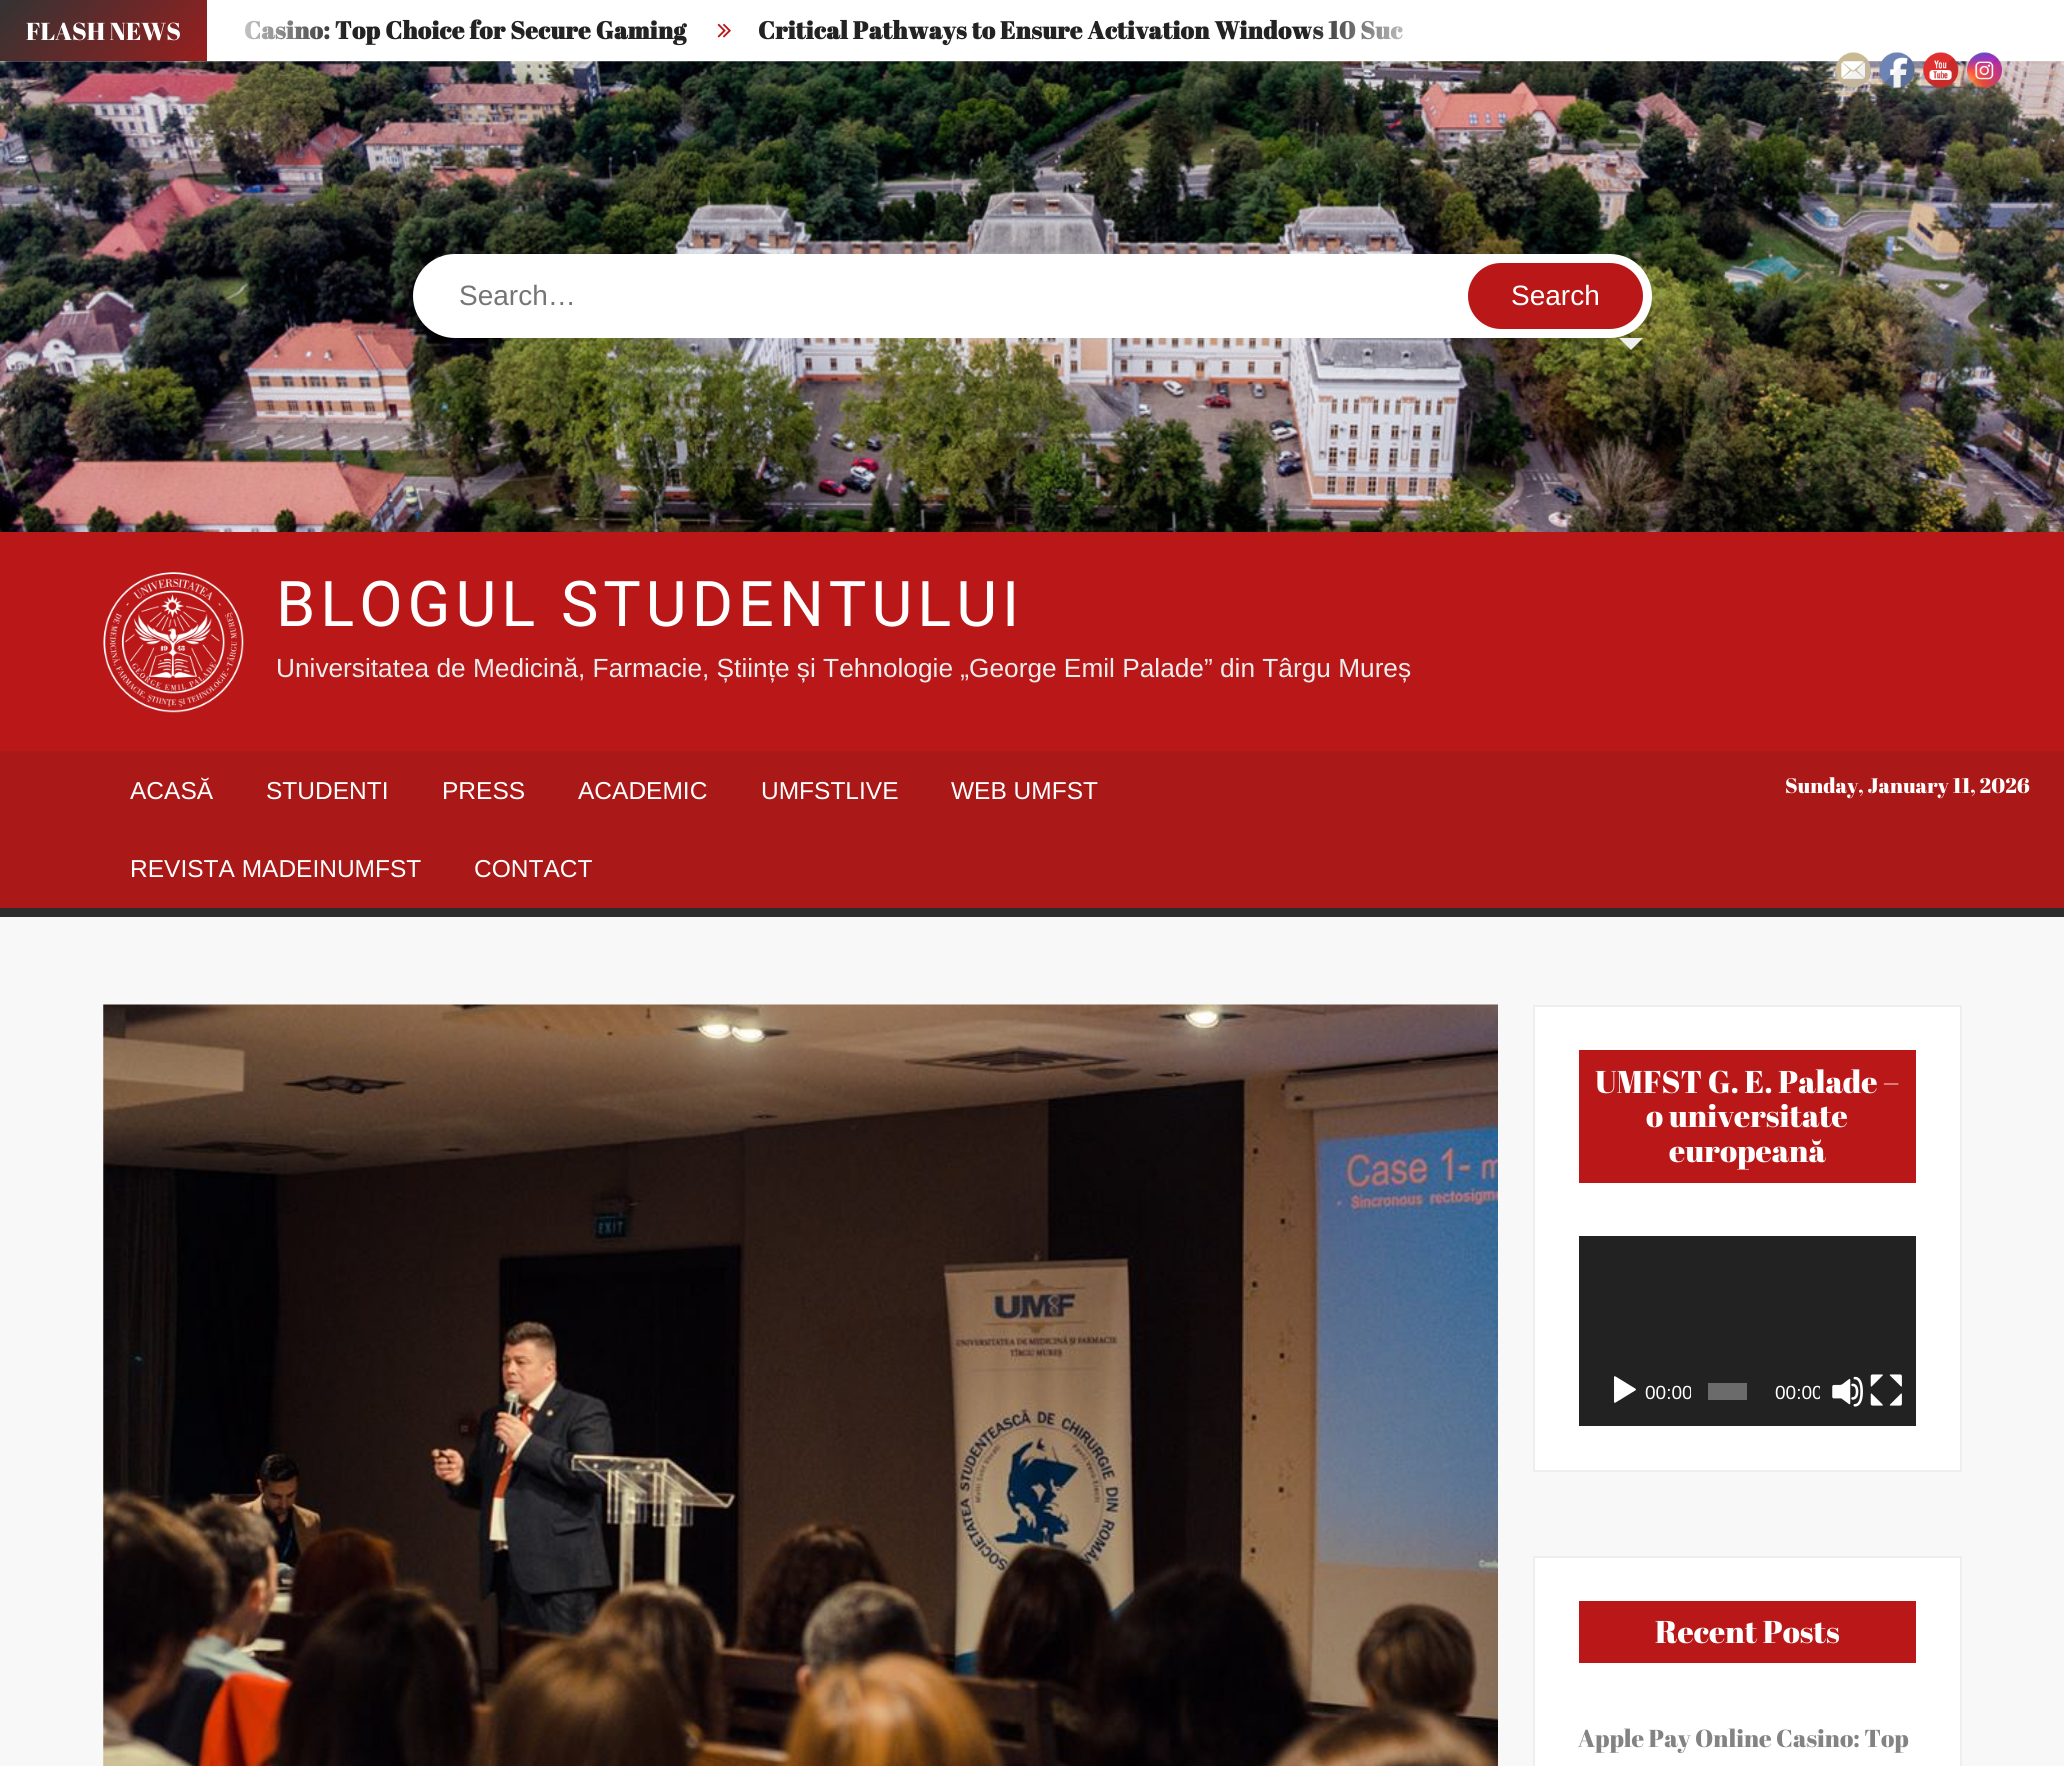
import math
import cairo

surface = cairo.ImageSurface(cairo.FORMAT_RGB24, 2064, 1766)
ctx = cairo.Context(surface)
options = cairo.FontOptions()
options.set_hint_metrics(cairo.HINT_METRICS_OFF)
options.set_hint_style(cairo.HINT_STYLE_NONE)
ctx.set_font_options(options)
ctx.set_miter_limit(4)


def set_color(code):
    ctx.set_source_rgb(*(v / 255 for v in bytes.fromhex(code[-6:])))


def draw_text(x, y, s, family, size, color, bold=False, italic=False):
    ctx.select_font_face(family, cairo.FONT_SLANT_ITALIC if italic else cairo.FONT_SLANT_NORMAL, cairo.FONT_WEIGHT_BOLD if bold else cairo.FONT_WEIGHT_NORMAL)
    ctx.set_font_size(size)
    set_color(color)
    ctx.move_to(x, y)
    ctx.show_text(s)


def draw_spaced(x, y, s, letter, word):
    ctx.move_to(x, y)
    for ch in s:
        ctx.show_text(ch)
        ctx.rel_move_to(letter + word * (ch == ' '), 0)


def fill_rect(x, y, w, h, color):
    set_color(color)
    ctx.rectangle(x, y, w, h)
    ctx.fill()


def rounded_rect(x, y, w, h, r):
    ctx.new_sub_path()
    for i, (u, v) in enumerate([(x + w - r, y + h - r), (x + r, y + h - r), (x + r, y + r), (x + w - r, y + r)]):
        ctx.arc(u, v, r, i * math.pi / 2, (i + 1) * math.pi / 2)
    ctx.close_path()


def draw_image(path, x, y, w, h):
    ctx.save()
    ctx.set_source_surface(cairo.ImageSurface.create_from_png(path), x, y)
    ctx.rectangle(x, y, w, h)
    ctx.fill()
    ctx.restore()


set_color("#f8f8f8")
ctx.paint()
fill_rect(208, 0, 1856, 61, "#ffffff")
ctx.select_font_face("Abril Fatface", cairo.FONT_SLANT_NORMAL, cairo.FONT_WEIGHT_BOLD)
ctx.set_font_size(24.5)
set_color("#222222")
draw_spaced(244, 39, "Casino: Top Choice for Secure Gaming", 0.35, 0)
draw_image("assets/img1.png", 717, 23, 14, 15)
draw_spaced(758, 39, "Critical Pathways to Ensure Activation Windows 10 Suc", 0.35, 0)
gradient = cairo.LinearGradient(681, 390, 145, -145)
gradient.add_color_stop_rgba(0, 0.729, 0.094, 0.094, 1)
gradient.add_color_stop_rgba(0.33, 0.933, 0.933, 0.933, 1)
gradient.add_color_stop_rgba(0.67, 0.729, 0.094, 0.094, 1)
gradient.add_color_stop_rgba(1, 0.2, 0.2, 0.2, 1)
ctx.set_source(gradient)
ctx.rectangle(0, 0, 207, 61)
ctx.fill()
draw_text(26, 40, "FLASH NEWS", "Abril Fatface", 24.5, "#ffffff")
gradient = cairo.LinearGradient(207, 31, 347, 31)
gradient.add_color_stop_rgba(0, 1, 1, 1, 1)
gradient.add_color_stop_rgba(1, 1, 1, 1, 0)
ctx.set_source(gradient)
ctx.rectangle(207, 0, 137, 61)
ctx.fill()
gradient = cairo.LinearGradient(1306, 31, 1446, 31)
gradient.add_color_stop_rgba(0, 1, 1, 1, 0)
gradient.add_color_stop_rgba(1, 1, 1, 1, 1)
ctx.set_source(gradient)
ctx.rectangle(1309, 21, 94, 19)
ctx.fill()
draw_image("assets/img2.png", 0, 61, 2064, 471)
set_color("#ffffff")
rounded_rect(413, 254, 1239, 84, 42)
ctx.fill()
draw_text(459, 305, "Search…", "Arimo", 28, "#757575")
set_color("#ba1818")
rounded_rect(1468, 263, 175, 66, 33)
ctx.fill()
draw_text(1511, 305, "Search", "Arimo", 28, "#ffffff")
set_color("#eeeeee")
ctx.new_path()
ctx.move_to(1619, 338)
ctx.line_to(1643, 338)
ctx.line_to(1631, 350)
ctx.close_path()
ctx.fill()
fill_rect(0, 532, 2064, 219, "#ba1818")
draw_image("assets/img3.png", 103, 572, 141, 141)
ctx.select_font_face("Heebo")
ctx.set_font_size(63)
set_color("#ffffff")
draw_spaced(276, 626, "BLOGUL STUDENTULUI", 5, 0)
draw_text(276, 677, "Universitatea de Medicină, Farmacie, Științe și Tehnologie „George Emil Palade” din Târgu Mureș", "Arimo", 26.25, "#eeeeee")
fill_rect(0, 751, 2064, 157, "#aa1818")
fill_rect(0, 908, 2064, 9, "#2c2c2c")
draw_text(130, 799, "ACASĂ", "Arimo", 24.5, "#ffffff")
draw_text(266, 799, "STUDENTI", "Arimo", 24.5, "#ffffff")
draw_text(442, 799, "PRESS", "Arimo", 24.5, "#ffffff")
draw_text(578, 799, "ACADEMIC", "Arimo", 24.5, "#ffffff")
draw_text(761, 799, "UMFSTLIVE", "Arimo", 24.5, "#ffffff")
draw_text(951, 799, "WEB UMFST", "Arimo", 24.5, "#ffffff")
draw_text(130, 877, "REVISTA MADEINUMFST", "Arimo", 24.5, "#ffffff")
draw_text(474, 877, "CONTACT", "Arimo", 24.5, "#ffffff")
draw_text(1785, 793, "Sunday, January 11, 2026", "Abril Fatface", 21, "#ffffff")
draw_image("assets/img4.png", 103, 1004, 1395, 762)
ctx.rectangle(1534, 1006, 427, 465)
ctx.fill_preserve()
set_color("#eeeeee")
ctx.stroke()
fill_rect(1579, 1050, 337, 133, "#ba1818")
draw_text(1595, 1093, "UMFST G. E. Palade –", "Abril Fatface", 31.5, "#ffffff")
draw_text(1646, 1127, "o universitate", "Abril Fatface", 31.5, "#ffffff")
draw_text(1669, 1162, "europeană", "Abril Fatface", 31.5, "#ffffff")
fill_rect(1579, 1236, 337, 190, "#222222")
draw_image("assets/img5.png", 1614, 1376, 22, 27)
ctx.save()
ctx.rectangle(1635, 1356, 56, 70)
ctx.clip()
draw_text(1645, 1399, "00:00", "Liberation Sans", 19, "#ffffff")
ctx.restore()
fill_rect(1708, 1383, 39, 17, "#6b6b6b")
ctx.save()
ctx.rectangle(1764, 1356, 56, 70)
ctx.clip()
draw_text(1775, 1399, "00:00", "Liberation Sans", 19, "#ffffff")
ctx.restore()
draw_image("assets/img6.png", 1832, 1376, 31, 31)
draw_image("assets/img7.png", 1870, 1374, 32, 32)
set_color("#ffffff")
ctx.rectangle(1534, 1557, 427, 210)
ctx.fill_preserve()
set_color("#eeeeee")
ctx.stroke()
fill_rect(1579, 1601, 337, 62, "#ba1818")
draw_text(1655, 1643, "Recent Posts", "Abril Fatface", 31.5, "#ffffff")
draw_text(1578, 1747, "Apple Pay Online Casino: Top", "Abril Fatface", 24.5, "#838383")
draw_image("assets/img8.png", 1835, 52, 36, 36)
draw_image("assets/img9.png", 1879, 52, 36, 36)
draw_image("assets/img10.png", 1923, 52, 36, 36)
draw_image("assets/img11.png", 1967, 52, 35, 36)
surface.write_to_png("output.png")
